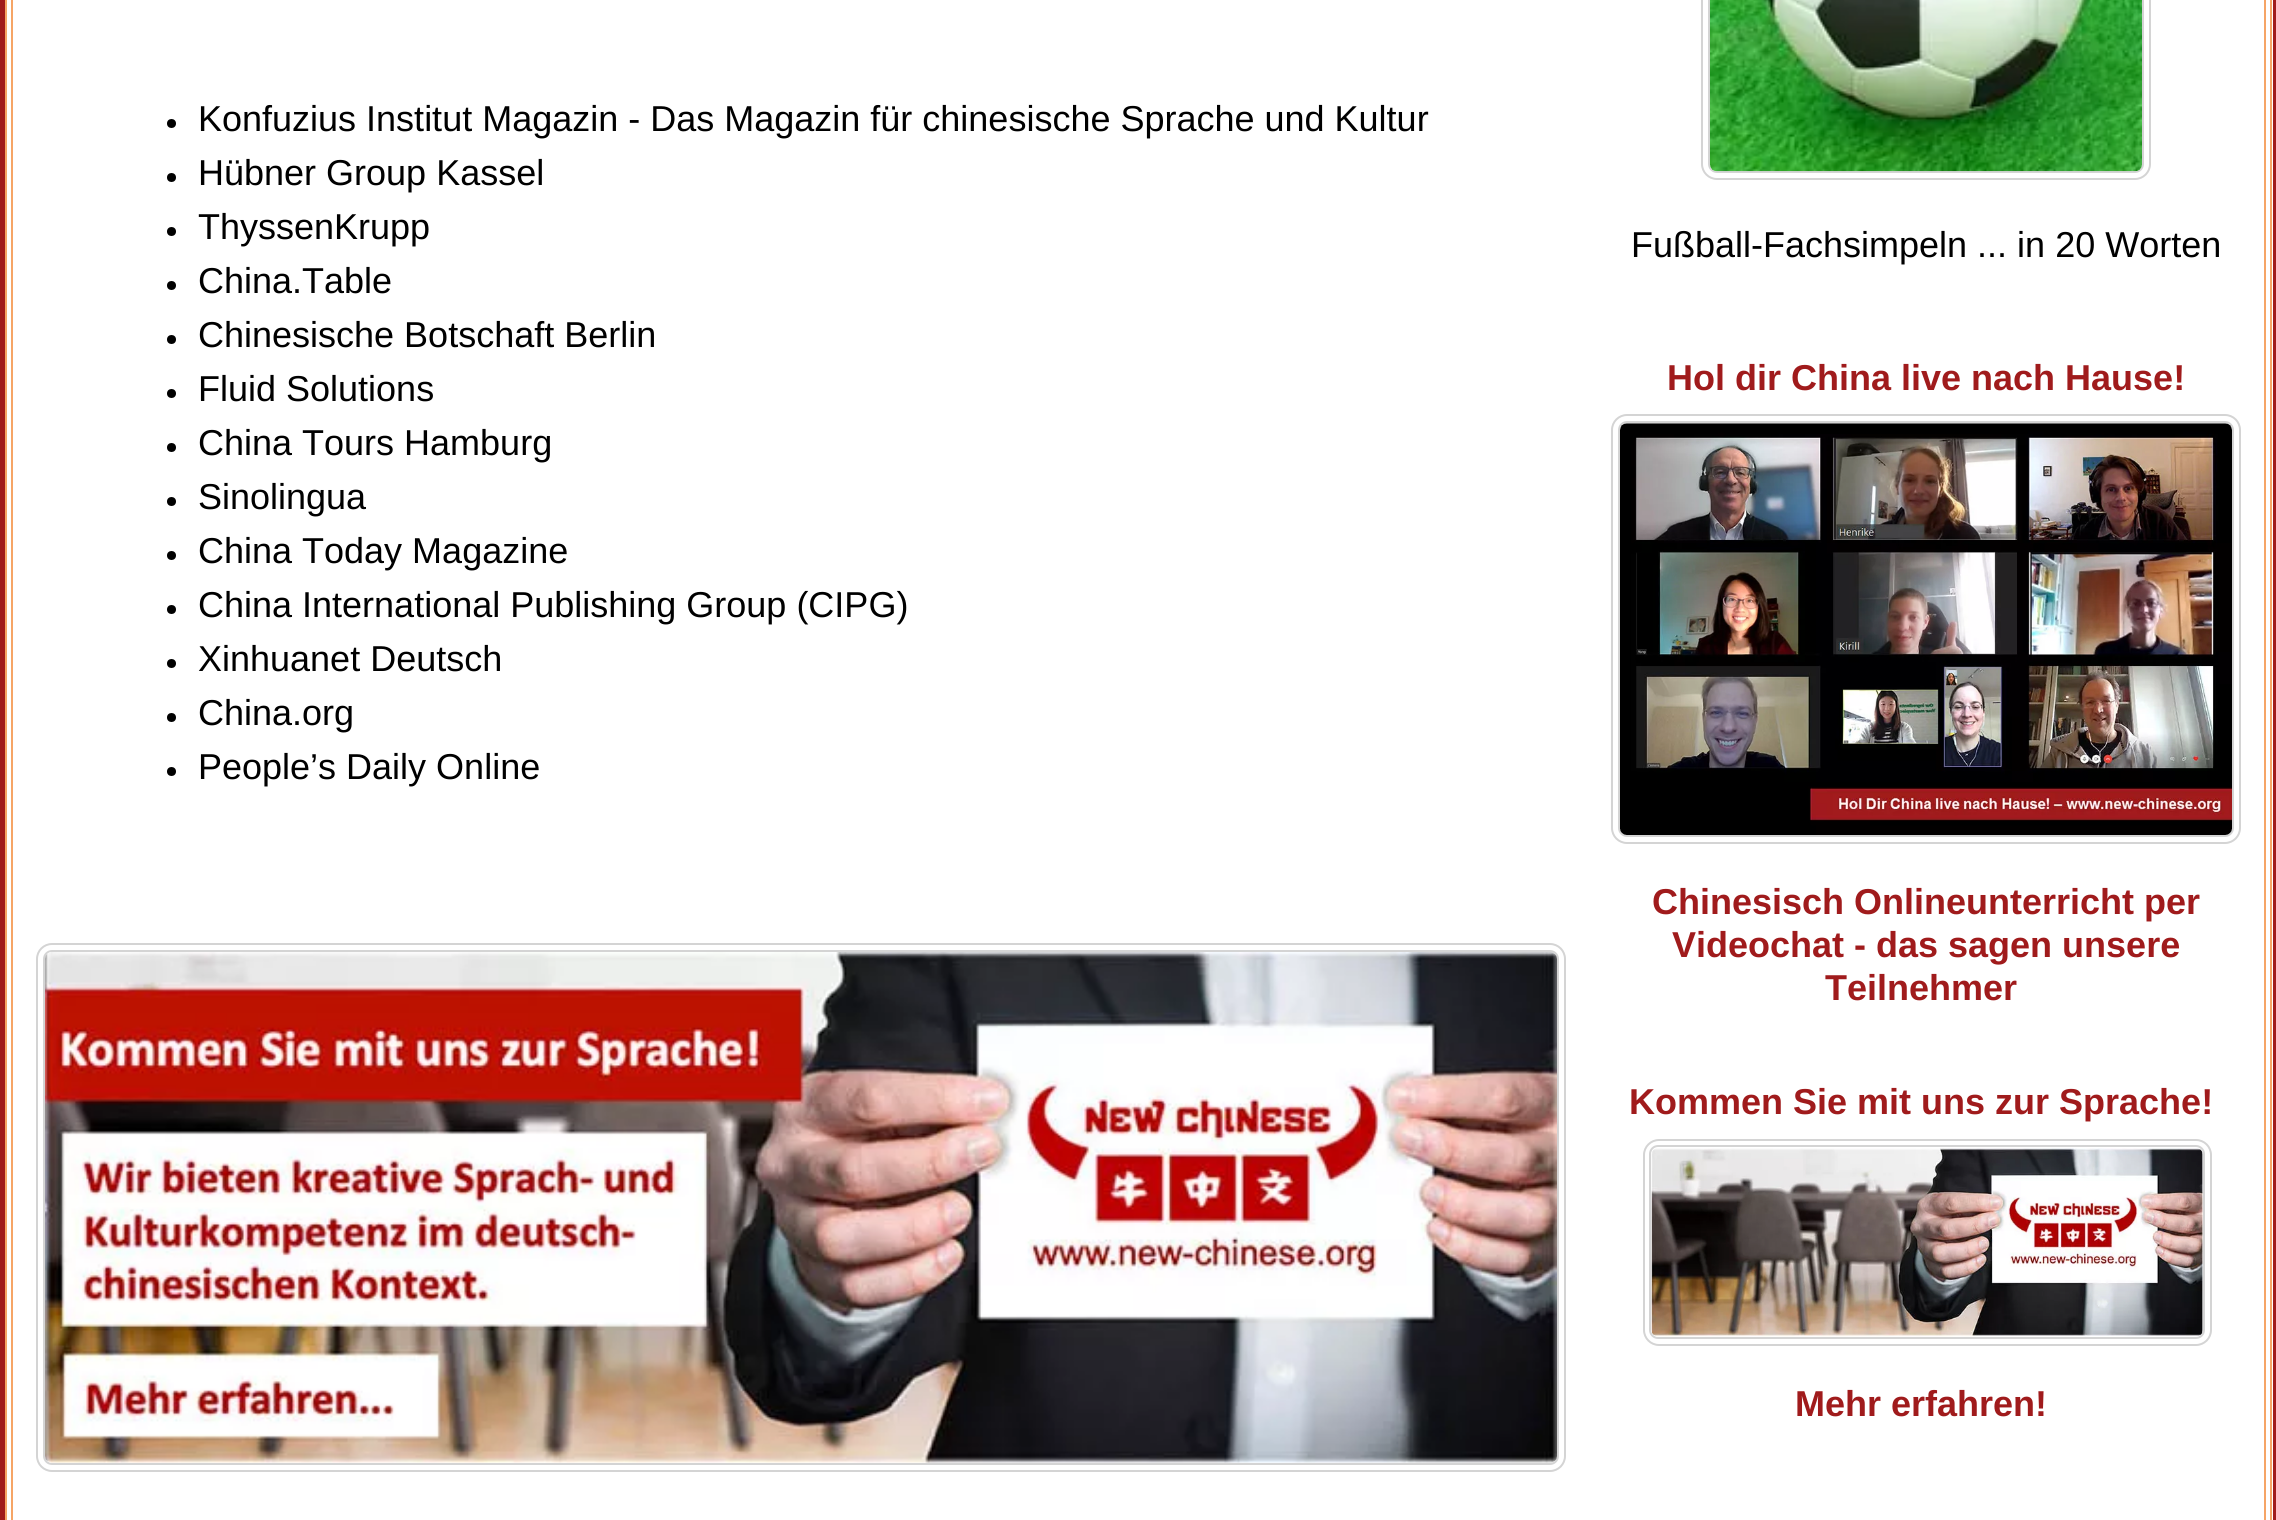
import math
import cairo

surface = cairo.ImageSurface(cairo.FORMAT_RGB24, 2276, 1520)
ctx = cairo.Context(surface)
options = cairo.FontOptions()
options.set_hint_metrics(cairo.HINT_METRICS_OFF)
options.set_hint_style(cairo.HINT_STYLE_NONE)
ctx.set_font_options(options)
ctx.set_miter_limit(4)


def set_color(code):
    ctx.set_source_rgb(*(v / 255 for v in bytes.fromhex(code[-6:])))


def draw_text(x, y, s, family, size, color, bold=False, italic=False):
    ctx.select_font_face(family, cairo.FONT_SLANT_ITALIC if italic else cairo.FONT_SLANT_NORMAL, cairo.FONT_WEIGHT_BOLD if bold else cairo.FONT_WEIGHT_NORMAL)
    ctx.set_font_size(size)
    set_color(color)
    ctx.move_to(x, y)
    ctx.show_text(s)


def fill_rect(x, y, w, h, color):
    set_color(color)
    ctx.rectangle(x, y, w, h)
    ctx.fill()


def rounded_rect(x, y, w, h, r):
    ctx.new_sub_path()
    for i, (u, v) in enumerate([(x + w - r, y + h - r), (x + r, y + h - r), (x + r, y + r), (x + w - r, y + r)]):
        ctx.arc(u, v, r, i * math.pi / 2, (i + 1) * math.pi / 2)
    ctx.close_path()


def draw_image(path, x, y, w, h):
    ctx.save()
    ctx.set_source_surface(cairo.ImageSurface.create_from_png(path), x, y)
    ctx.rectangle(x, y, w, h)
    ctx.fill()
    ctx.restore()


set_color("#a01b1c")
ctx.paint()
fill_rect(7, 0, 2266, 1520, "#ffffff")
fill_rect(2264, 0, 2, 1520, "#f6a566")
fill_rect(2270, 0, 2, 1520, "#f6a566")
fill_rect(5, 0, 2, 1520, "#f6a566")
fill_rect(11, 0, 2, 1520, "#f6a566")
set_color("#000000")
ctx.arc(171.5, 123.5, 4.5, 0, 2 * math.pi)
ctx.fill()
draw_text(198, 131, "Konfuzius Institut Magazin - Das Magazin für chinesische Sprache und Kultur", "Liberation Sans", 36, "#000000")
ctx.new_path()
ctx.arc(171.5, 177.5, 4.5, 0, 2 * math.pi)
ctx.fill()
draw_text(198, 185, "Hübner Group Kassel", "Liberation Sans", 36, "#000000")
ctx.new_path()
ctx.arc(171.5, 231.5, 4.5, 0, 2 * math.pi)
ctx.fill()
draw_text(198, 239, "ThyssenKrupp", "Liberation Sans", 36, "#000000")
ctx.new_path()
ctx.arc(171.5, 285.5, 4.5, 0, 2 * math.pi)
ctx.fill()
draw_text(198, 293, "China.Table", "Liberation Sans", 36, "#000000")
ctx.new_path()
ctx.arc(171.5, 339.5, 4.5, 0, 2 * math.pi)
ctx.fill()
draw_text(198, 347, "Chinesische Botschaft Berlin", "Liberation Sans", 36, "#000000")
ctx.new_path()
ctx.arc(171.5, 393.5, 4.5, 0, 2 * math.pi)
ctx.fill()
draw_text(198, 401, "Fluid Solutions", "Liberation Sans", 36, "#000000")
ctx.new_path()
ctx.arc(171.5, 447.5, 4.5, 0, 2 * math.pi)
ctx.fill()
draw_text(198, 455, "China Tours Hamburg", "Liberation Sans", 36, "#000000")
ctx.new_path()
ctx.arc(171.5, 501.5, 4.5, 0, 2 * math.pi)
ctx.fill()
draw_text(198, 509, "Sinolingua", "Liberation Sans", 36, "#000000")
ctx.new_path()
ctx.arc(171.5, 555.5, 4.5, 0, 2 * math.pi)
ctx.fill()
draw_text(198, 563, "China Today Magazine", "Liberation Sans", 36, "#000000")
ctx.new_path()
ctx.arc(171.5, 609.5, 4.5, 0, 2 * math.pi)
ctx.fill()
draw_text(198, 617, "China International Publishing Group (CIPG)", "Liberation Sans", 36, "#000000")
ctx.new_path()
ctx.arc(171.5, 663.5, 4.5, 0, 2 * math.pi)
ctx.fill()
draw_text(198, 671, "Xinhuanet Deutsch", "Liberation Sans", 36, "#000000")
ctx.new_path()
ctx.arc(171.5, 717.5, 4.5, 0, 2 * math.pi)
ctx.fill()
draw_text(198, 725, "China.org", "Liberation Sans", 36, "#000000")
ctx.new_path()
ctx.arc(171.5, 771.5, 4.5, 0, 2 * math.pi)
ctx.fill()
draw_text(198, 779, "People’s Daily Online", "Liberation Sans", 36, "#000000")
rounded_rect(37, 944, 1528, 527, 15)
set_color("#d4d4d4")
ctx.stroke()
rounded_rect(44, 951, 1514, 513, 8)
ctx.stroke()
draw_image("assets/img1.png", 45, 952, 1512, 511)
rounded_rect(1702, -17, 448, 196, 15)
ctx.stroke()
rounded_rect(1709, -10, 434, 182, 8)
ctx.stroke()
draw_image("assets/img2.png", 1710, 0, 432, 172)
draw_text(1631, 257, "Fußball-Fachsimpeln ... in 20 Worten", "Liberation Sans", 36, "#000000")
draw_text(1667, 390, "Hol dir China live nach Hause!", "Liberation Sans", 36, "#a01b1c", bold=True)
rounded_rect(1612, 415, 628, 428, 15)
set_color("#d4d4d4")
ctx.stroke()
rounded_rect(1619, 422, 614, 414, 8)
ctx.stroke()
draw_image("assets/img3.png", 1620, 423, 612, 412)
draw_text(1652, 914, "Chinesisch Onlineunterricht per", "Liberation Sans", 36, "#a01b1c", bold=True)
draw_text(1672, 957, "Videochat - das sagen unsere", "Liberation Sans", 36, "#a01b1c", bold=True)
draw_text(1825, 1000, "Teilnehmer", "Liberation Sans", 36, "#a01b1c", bold=True)
draw_text(1629, 1114, "Kommen Sie mit uns zur Sprache!", "Liberation Sans", 36, "#a01b1c", bold=True)
rounded_rect(1644, 1140, 567, 205, 15)
set_color("#d4d4d4")
ctx.stroke()
rounded_rect(1650, 1146, 554, 192, 8)
ctx.stroke()
draw_image("assets/img4.png", 1651, 1148, 552, 189)
draw_text(1795, 1416, "Mehr erfahren!", "Liberation Sans", 36, "#a01b1c", bold=True)
surface.write_to_png("output.png")
